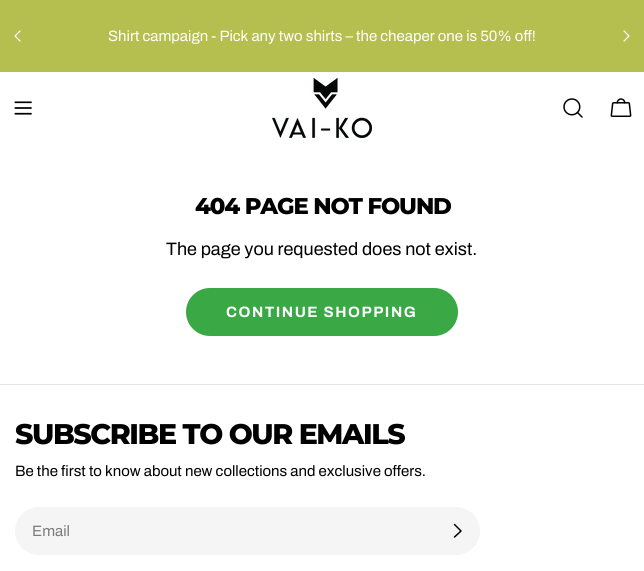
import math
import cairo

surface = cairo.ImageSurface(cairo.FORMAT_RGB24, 644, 571)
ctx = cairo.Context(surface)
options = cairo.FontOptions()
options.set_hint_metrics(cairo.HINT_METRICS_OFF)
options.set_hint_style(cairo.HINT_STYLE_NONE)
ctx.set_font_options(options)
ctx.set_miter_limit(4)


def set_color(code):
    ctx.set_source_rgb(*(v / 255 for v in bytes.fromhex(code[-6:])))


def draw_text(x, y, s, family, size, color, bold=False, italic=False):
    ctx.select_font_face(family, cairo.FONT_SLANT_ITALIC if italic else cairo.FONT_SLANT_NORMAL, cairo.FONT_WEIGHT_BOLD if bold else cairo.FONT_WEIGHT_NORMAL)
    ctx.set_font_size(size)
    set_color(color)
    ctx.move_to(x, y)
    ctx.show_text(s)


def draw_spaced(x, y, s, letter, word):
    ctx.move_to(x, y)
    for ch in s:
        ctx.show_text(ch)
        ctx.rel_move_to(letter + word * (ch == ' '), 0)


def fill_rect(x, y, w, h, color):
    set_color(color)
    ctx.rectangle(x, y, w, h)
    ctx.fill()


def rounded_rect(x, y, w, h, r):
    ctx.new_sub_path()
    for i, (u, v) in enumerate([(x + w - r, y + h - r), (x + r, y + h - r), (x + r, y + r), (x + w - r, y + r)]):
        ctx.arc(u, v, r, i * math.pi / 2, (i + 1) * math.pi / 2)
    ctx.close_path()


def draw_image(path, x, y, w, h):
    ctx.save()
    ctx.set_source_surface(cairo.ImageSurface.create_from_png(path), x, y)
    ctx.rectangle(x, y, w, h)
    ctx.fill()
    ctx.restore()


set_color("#ffffff")
ctx.paint()
fill_rect(0, 0, 644, 72, "#b5bf50")
ctx.new_path()
ctx.move_to(20, 41)
ctx.line_to(15, 36)
ctx.line_to(20, 31)
set_color("#ffffff")
ctx.set_line_width(1.2)
ctx.set_line_cap(cairo.LINE_CAP_ROUND)
ctx.set_line_join(cairo.LINE_JOIN_ROUND)
ctx.stroke()
ctx.new_path()
ctx.move_to(624, 31)
ctx.line_to(629, 36)
ctx.line_to(624, 41)
ctx.stroke()
draw_text(108, 41, "Shirt campaign - Pick any two shirts – the cheaper one is 50% off!", "Archivo", 15, "#ffffff")
draw_image("assets/img1.png", 14, 101, 18, 14)
draw_image("assets/img2.png", 272, 78, 100, 60)
draw_image("assets/img3.png", 563, 98, 20, 20)
draw_image("assets/img4.png", 610, 98, 22, 19)
ctx.select_font_face("Montserrat ExtraBold")
ctx.set_font_size(22.75)
set_color("#000000")
draw_spaced(195, 214, "404 PAGE NOT FOUND", -1.1, 0)
draw_text(166, 255, "The page you requested does not exist.", "Archivo", 18, "#000000")
set_color("#39a845")
rounded_rect(186, 288, 272, 48, 24)
ctx.fill()
ctx.select_font_face("Archivo", cairo.FONT_SLANT_NORMAL, cairo.FONT_WEIGHT_BOLD)
ctx.set_font_size(15)
set_color("#ffffff")
draw_spaced(226, 317, "CONTINUE SHOPPING", 1.5, 0)
fill_rect(0, 384, 644, 1, "#e6e6e6")
ctx.select_font_face("Montserrat ExtraBold")
ctx.set_font_size(28.4)
set_color("#000000")
draw_spaced(15, 444, "SUBSCRIBE TO OUR EMAILS", -1.4, 0)
draw_text(15, 476, "Be the first to know about new collections and exclusive offers.", "Archivo", 15, "#000000")
set_color("#f5f5f5")
rounded_rect(15.5, 507.5, 464, 47, 23.5)
ctx.fill_preserve()
ctx.set_line_width(1)
ctx.set_line_cap(cairo.LINE_CAP_BUTT)
ctx.set_line_join(cairo.LINE_JOIN_MITER)
ctx.stroke()
draw_text(32, 536, "Email", "Archivo", 15, "#7b7b7b")
ctx.new_path()
ctx.move_to(454.5, 524.5)
ctx.line_to(461, 531)
ctx.line_to(454.5, 537)
set_color("#000000")
ctx.set_line_width(1.5)
ctx.set_line_cap(cairo.LINE_CAP_ROUND)
ctx.set_line_join(cairo.LINE_JOIN_ROUND)
ctx.stroke()
surface.write_to_png("output.png")
